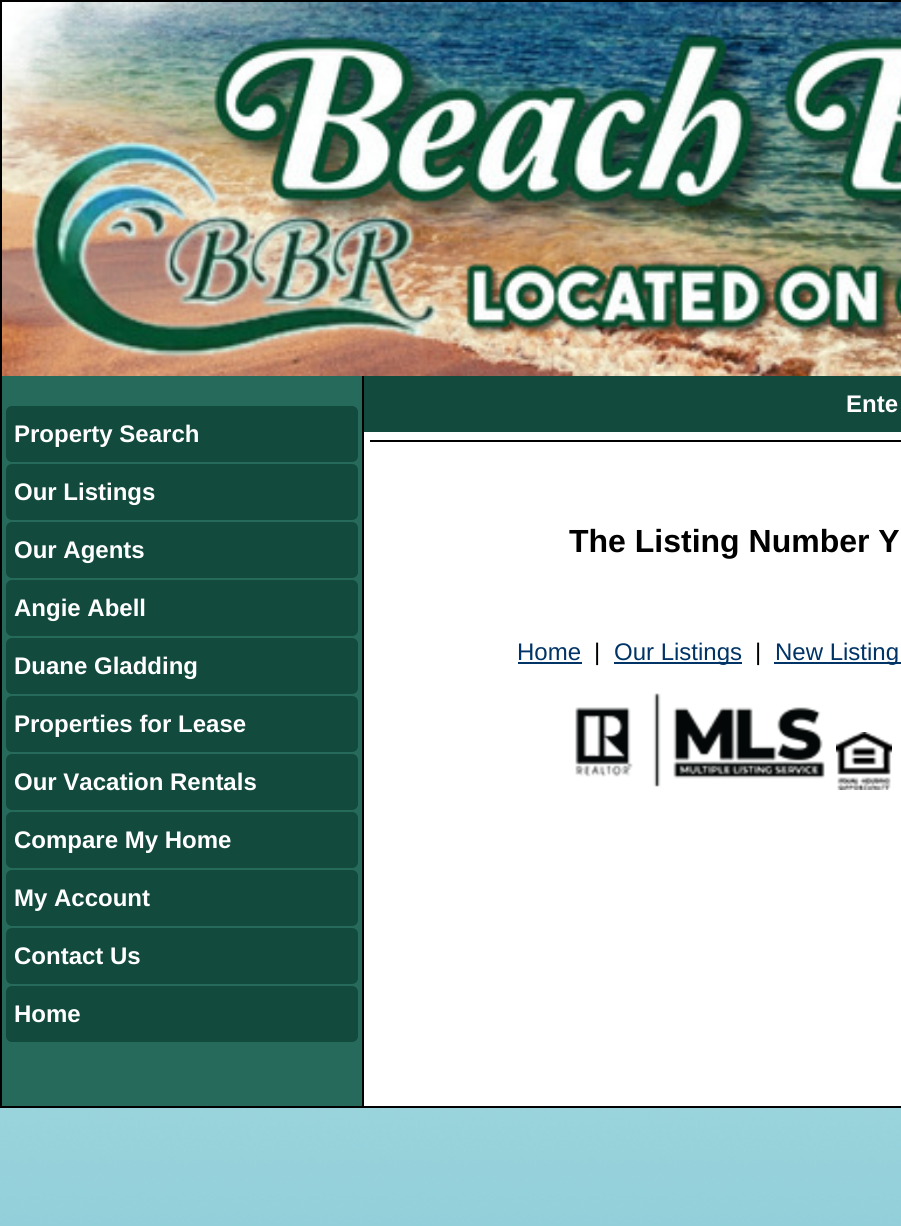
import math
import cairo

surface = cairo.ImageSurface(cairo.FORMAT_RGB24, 901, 1226)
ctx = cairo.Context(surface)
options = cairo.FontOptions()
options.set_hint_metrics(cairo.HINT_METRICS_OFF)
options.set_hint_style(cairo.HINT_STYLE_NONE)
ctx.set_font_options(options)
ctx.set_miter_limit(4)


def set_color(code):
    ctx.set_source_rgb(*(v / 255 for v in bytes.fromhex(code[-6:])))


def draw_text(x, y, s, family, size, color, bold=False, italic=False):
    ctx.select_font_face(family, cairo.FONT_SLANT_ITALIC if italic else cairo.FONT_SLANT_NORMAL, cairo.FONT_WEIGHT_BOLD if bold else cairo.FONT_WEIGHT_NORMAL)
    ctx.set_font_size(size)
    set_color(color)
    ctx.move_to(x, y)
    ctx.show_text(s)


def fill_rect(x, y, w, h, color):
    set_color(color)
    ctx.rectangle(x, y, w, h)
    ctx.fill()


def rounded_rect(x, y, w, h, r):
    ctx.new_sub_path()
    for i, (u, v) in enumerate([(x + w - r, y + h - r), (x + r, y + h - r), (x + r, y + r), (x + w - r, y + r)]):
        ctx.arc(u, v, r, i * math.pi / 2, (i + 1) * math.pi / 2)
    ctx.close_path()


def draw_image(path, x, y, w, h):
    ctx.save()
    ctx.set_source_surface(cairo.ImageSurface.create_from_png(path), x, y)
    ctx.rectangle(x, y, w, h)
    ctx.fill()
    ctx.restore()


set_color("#ffffff")
ctx.paint()
draw_image("assets/img1.png", 0, 1108, 901, 118)
ctx.rectangle(1, 1, 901, 1106)
set_color("#000000")
ctx.stroke()
draw_image("assets/img2.png", 2, 2, 899, 374)
fill_rect(2, 376, 360, 730, "#266a5b")
fill_rect(362, 376, 2, 730, "#000000")
set_color("#134a3e")
rounded_rect(6, 406, 352, 56, 6)
ctx.fill()
draw_text(14, 442, "Property Search", "Liberation Sans", 24, "#ffffff", bold=True)
set_color("#134a3e")
rounded_rect(6, 464, 352, 56, 6)
ctx.fill()
draw_text(14, 500, "Our Listings", "Liberation Sans", 24, "#ffffff", bold=True)
set_color("#134a3e")
rounded_rect(6, 522, 352, 56, 6)
ctx.fill()
draw_text(14, 558, "Our Agents", "Liberation Sans", 24, "#ffffff", bold=True)
set_color("#134a3e")
rounded_rect(6, 580, 352, 56, 6)
ctx.fill()
draw_text(14, 616, "Angie Abell", "Liberation Sans", 24, "#ffffff", bold=True)
set_color("#134a3e")
rounded_rect(6, 638, 352, 56, 6)
ctx.fill()
draw_text(14, 674, "Duane Gladding", "Liberation Sans", 24, "#ffffff", bold=True)
set_color("#134a3e")
rounded_rect(6, 696, 352, 56, 6)
ctx.fill()
draw_text(14, 732, "Properties for Lease", "Liberation Sans", 24, "#ffffff", bold=True)
set_color("#134a3e")
rounded_rect(6, 754, 352, 56, 6)
ctx.fill()
draw_text(14, 790, "Our Vacation Rentals", "Liberation Sans", 24, "#ffffff", bold=True)
set_color("#134a3e")
rounded_rect(6, 812, 352, 56, 6)
ctx.fill()
draw_text(14, 848, "Compare My Home", "Liberation Sans", 24, "#ffffff", bold=True)
set_color("#134a3e")
rounded_rect(6, 870, 352, 56, 6)
ctx.fill()
draw_text(14, 906, "My Account", "Liberation Sans", 24, "#ffffff", bold=True)
set_color("#134a3e")
rounded_rect(6, 928, 352, 56, 6)
ctx.fill()
draw_text(14, 964, "Contact Us", "Liberation Sans", 24, "#ffffff", bold=True)
set_color("#134a3e")
rounded_rect(6, 986, 352, 56, 6)
ctx.fill()
draw_text(14, 1022, "Home", "Liberation Sans", 24, "#ffffff", bold=True)
fill_rect(364, 376, 537, 56, "#134a3e")
draw_text(846, 412, "Ente", "Liberation Sans", 24, "#ffffff", bold=True)
fill_rect(370, 440, 531, 2, "#000000")
draw_text(569, 552, "The Listing Number Y", "Liberation Sans", 32, "#000000", bold=True)
draw_text(517, 660, "Home", "Liberation Sans", 24, "#003366")
fill_rect(518, 662, 64, 2, "#003366")
draw_text(594, 660, "|", "Liberation Sans", 24, "#000000")
fill_rect(614, 662, 128, 2, "#003366")
draw_text(614, 660, "Our Listings", "Liberation Sans", 24, "#003366")
draw_text(755, 660, "|", "Liberation Sans", 24, "#000000")
fill_rect(774, 662, 127, 2, "#003366")
draw_text(775, 660, "New Listing", "Liberation Sans", 24, "#003366")
draw_image("assets/img3.png", 575, 693, 250, 94)
draw_image("assets/img4.png", 836, 732, 56, 58)
surface.write_to_png("output.png")
